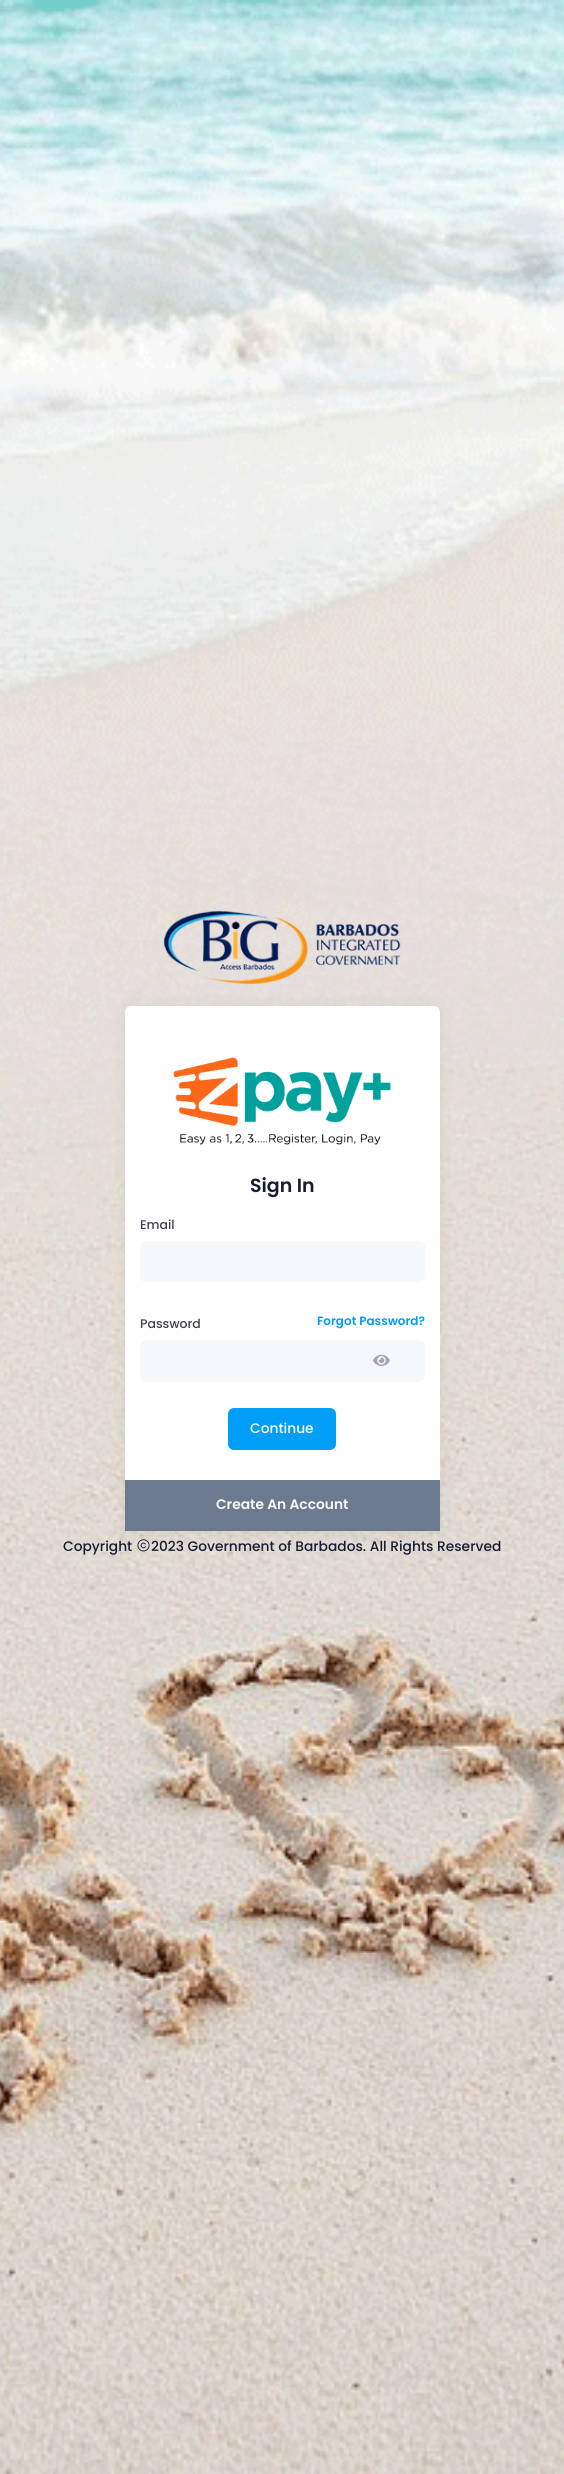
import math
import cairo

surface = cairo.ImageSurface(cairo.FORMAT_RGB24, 564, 2474)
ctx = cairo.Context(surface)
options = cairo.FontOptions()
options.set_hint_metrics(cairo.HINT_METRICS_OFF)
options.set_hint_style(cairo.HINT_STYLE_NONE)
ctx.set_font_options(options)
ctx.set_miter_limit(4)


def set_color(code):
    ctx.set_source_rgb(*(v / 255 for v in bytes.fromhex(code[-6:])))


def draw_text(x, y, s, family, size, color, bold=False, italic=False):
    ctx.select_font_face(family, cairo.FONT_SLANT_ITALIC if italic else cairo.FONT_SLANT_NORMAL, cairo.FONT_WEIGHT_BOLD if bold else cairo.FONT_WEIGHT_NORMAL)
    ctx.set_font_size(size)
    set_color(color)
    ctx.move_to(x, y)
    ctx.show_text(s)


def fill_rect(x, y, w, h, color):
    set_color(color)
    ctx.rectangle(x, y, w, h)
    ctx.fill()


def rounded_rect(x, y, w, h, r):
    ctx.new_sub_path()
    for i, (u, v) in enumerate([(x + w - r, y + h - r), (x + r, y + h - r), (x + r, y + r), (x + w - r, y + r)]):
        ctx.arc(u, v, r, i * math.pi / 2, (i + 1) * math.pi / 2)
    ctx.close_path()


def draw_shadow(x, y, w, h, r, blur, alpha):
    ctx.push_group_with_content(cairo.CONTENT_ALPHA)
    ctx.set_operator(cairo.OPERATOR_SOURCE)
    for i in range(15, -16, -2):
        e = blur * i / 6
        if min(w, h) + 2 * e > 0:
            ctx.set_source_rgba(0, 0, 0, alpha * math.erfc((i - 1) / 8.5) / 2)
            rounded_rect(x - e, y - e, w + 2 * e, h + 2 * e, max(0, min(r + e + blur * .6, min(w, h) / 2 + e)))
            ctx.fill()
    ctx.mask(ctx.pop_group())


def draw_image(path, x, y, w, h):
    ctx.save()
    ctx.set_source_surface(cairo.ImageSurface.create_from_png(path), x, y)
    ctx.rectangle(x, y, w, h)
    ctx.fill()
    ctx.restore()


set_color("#ffffff")
ctx.paint()
draw_image("assets/img1.png", 0, 0, 564, 2474)
draw_image("assets/img2.png", 163, 911, 238, 74)
draw_image("assets/img5.png", 137, 1539, 13, 13)
set_color("#000000")
draw_shadow(122, 1004, 321, 531, 9, 6, 0.05)
set_color("#ffffff")
rounded_rect(125, 1006, 315, 525, 6)
ctx.fill()
draw_image("assets/img3.png", 173, 1057, 218, 88)
draw_text(250, 1192, "Sign In", "Poppins SemiBold", 19, "#181c32")
draw_text(140, 1229, "Email", "Poppins Medium", 12.5, "#3f4254")
set_color("#f5f8fa")
rounded_rect(141, 1242, 283, 39, 5)
ctx.fill_preserve()
ctx.stroke()
draw_text(140, 1328, "Password", "Poppins Medium", 12.5, "#3f4254")
set_color("#f5f8fa")
rounded_rect(141, 1341, 283, 40, 5)
ctx.fill_preserve()
ctx.stroke()
draw_image("assets/img4.png", 373, 1354, 17, 12)
draw_text(317, 1325, "Forgot Password?", "Poppins SemiBold", 12, "#009ef7")
rounded_rect(228, 1408, 108, 42, 6)
ctx.fill()
draw_text(250, 1433, "Continue", "Poppins Medium", 13.8, "#ffffff")
fill_rect(125, 1480, 315, 51, "#6c7a8d")
draw_text(216, 1509, "Create An Account", "Poppins SemiBold", 13.8, "#f5f8fa")
draw_text(63, 1551, "Copyright", "Poppins Medium", 13.8, "#181c32")
draw_text(151, 1551, "2023 Government of Barbados. All Rights Reserved", "Poppins Medium", 13.8, "#181c32")
surface.write_to_png("output.png")
